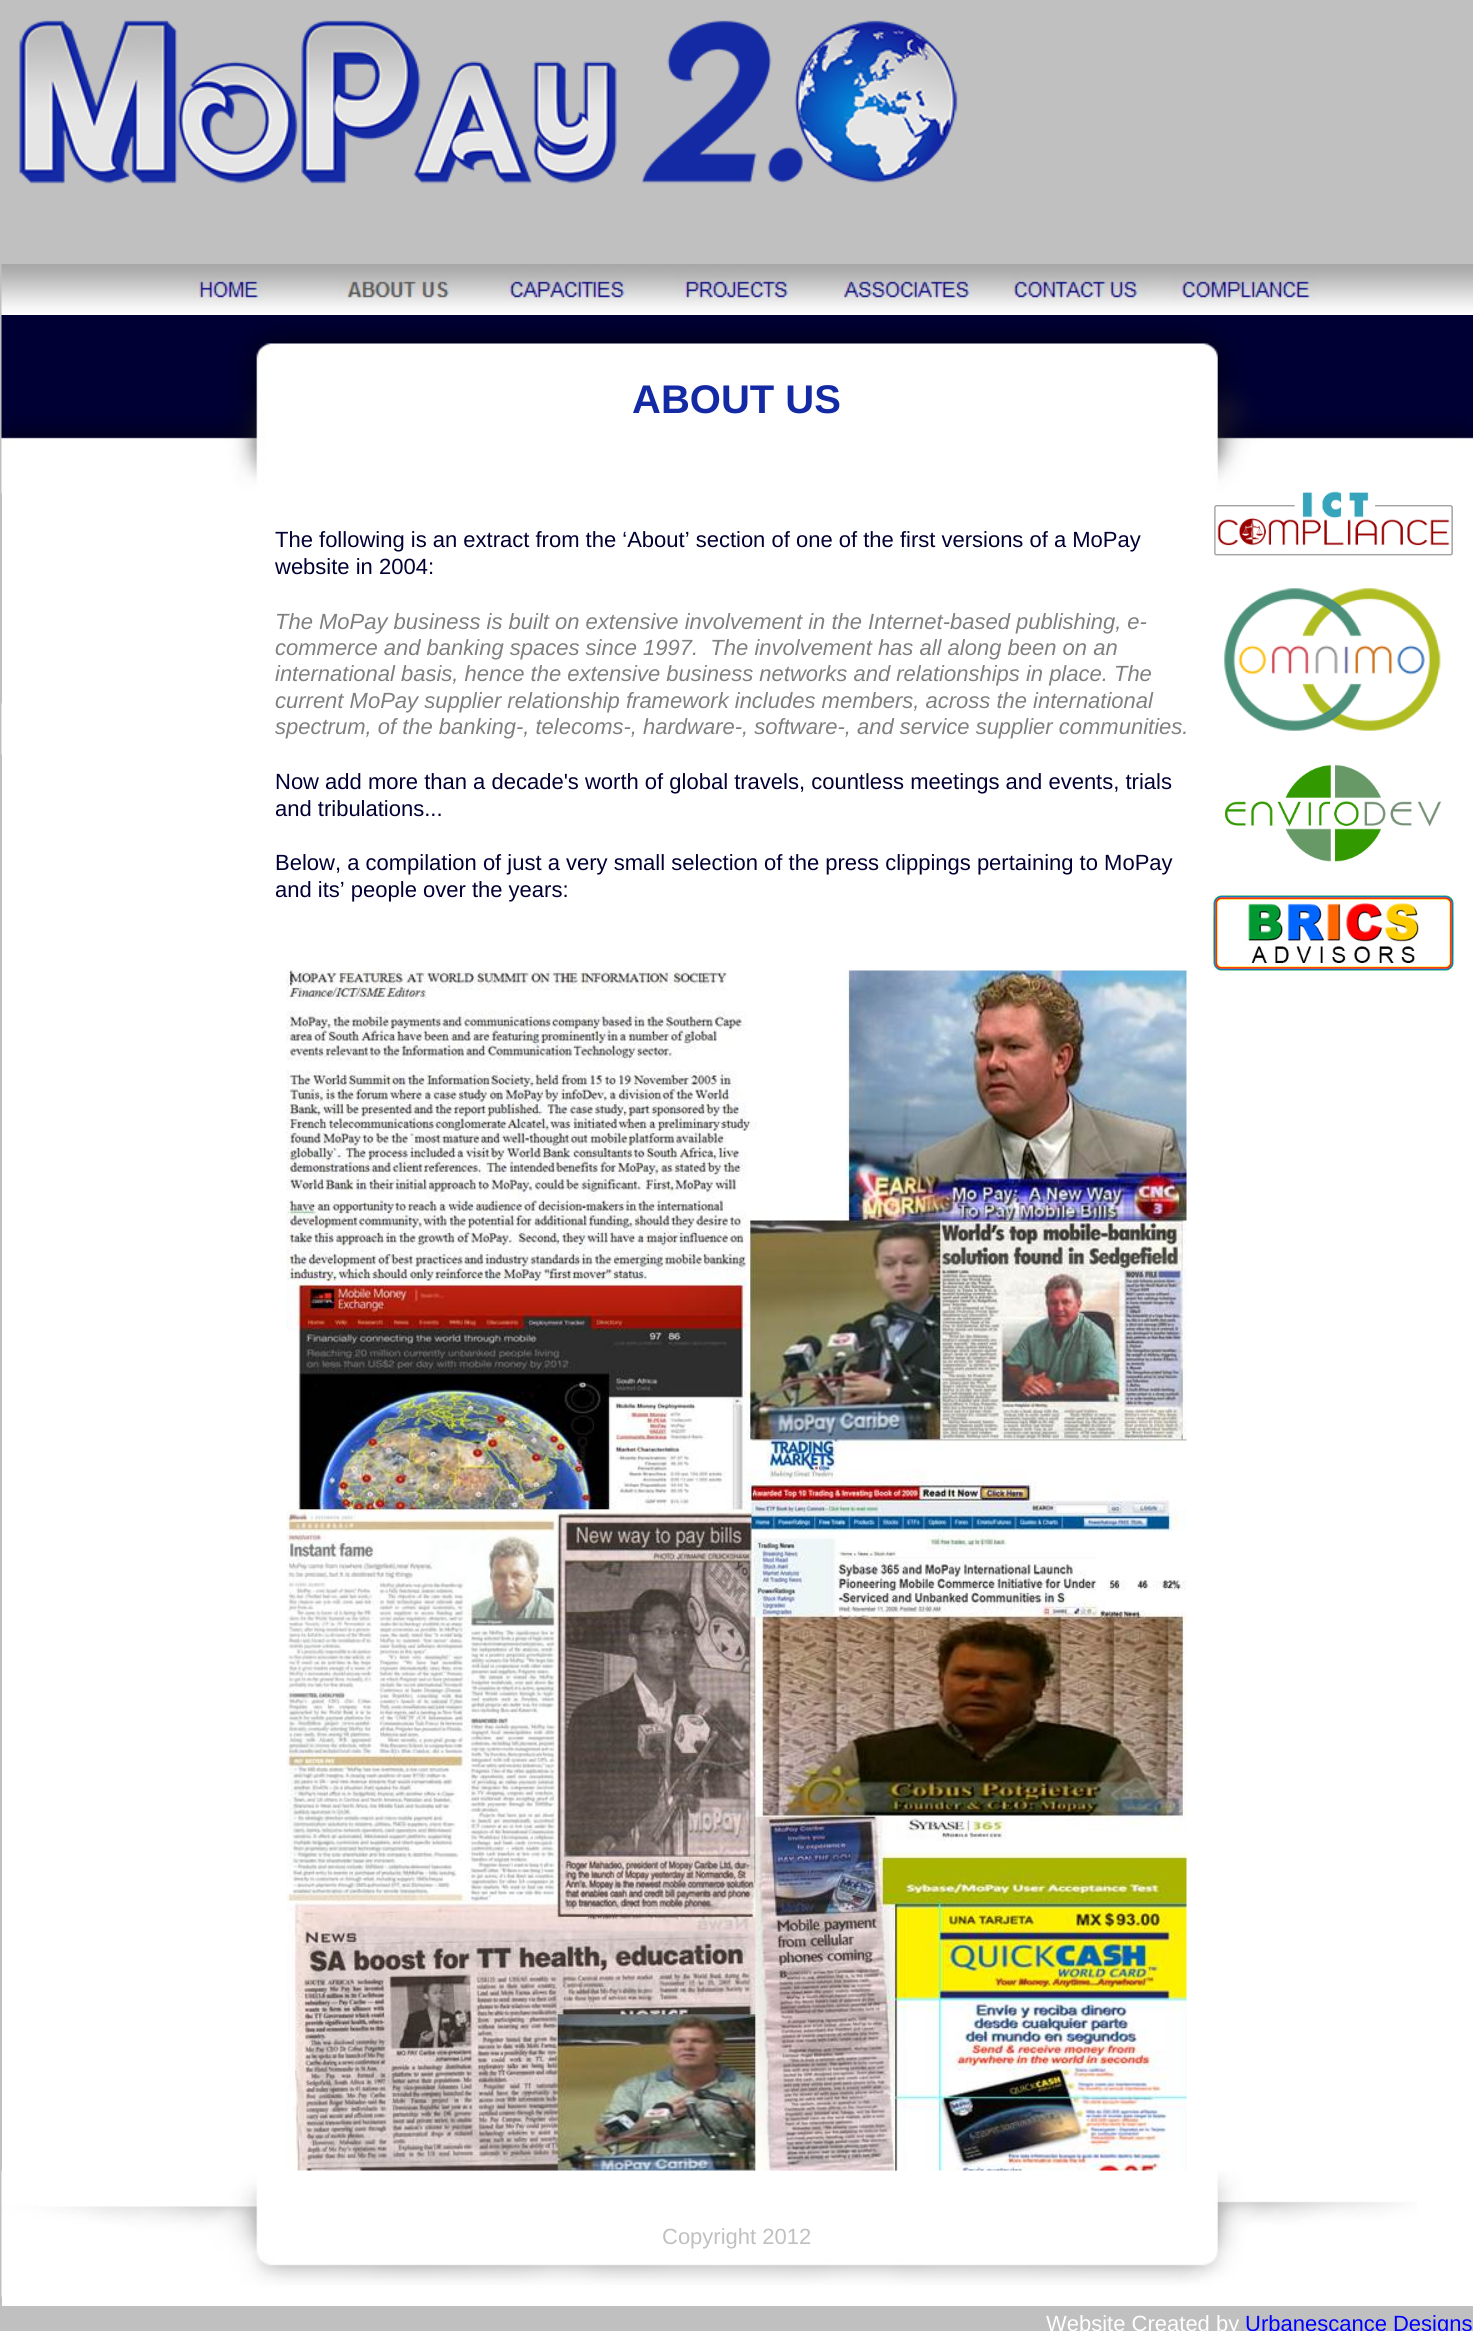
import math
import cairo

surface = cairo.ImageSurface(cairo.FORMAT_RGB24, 1473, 2331)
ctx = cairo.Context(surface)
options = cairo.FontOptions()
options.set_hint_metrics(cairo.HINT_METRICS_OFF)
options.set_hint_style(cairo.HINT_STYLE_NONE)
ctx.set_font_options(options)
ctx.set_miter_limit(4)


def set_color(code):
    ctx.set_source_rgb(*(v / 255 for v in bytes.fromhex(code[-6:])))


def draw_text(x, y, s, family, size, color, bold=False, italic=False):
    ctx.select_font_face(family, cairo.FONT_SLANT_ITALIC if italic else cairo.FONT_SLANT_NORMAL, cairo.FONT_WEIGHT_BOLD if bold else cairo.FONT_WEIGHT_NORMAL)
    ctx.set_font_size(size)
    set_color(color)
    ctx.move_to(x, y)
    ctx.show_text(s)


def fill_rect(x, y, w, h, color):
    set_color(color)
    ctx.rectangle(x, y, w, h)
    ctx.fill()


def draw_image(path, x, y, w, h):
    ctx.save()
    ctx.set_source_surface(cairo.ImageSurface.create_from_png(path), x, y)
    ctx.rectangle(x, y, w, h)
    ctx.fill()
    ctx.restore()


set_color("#c0c0c0")
ctx.paint()
draw_image("assets/img1.png", 19, 20, 939, 164)
draw_image("assets/img2.png", 1, 264, 1472, 51)
draw_image("assets/img3.png", 193, 276, 69, 24)
draw_image("assets/img4.png", 338, 276, 112, 22)
draw_image("assets/img5.png", 508, 276, 118, 22)
draw_image("assets/img6.png", 677, 276, 112, 24)
draw_image("assets/img7.png", 840, 276, 131, 24)
draw_image("assets/img8.png", 1010, 276, 137, 24)
draw_image("assets/img9.png", 1173, 276, 144, 24)
draw_image("assets/img10.png", 1, 315, 1472, 179)
draw_text(632, 413, "ABOUT US", "Liberation Sans", 40, "#142aa4", bold=True)
fill_rect(2, 491, 274, 480, "#ffffff")
draw_image("assets/img11.png", 1, 703, 1, 52)
fill_rect(276, 493, 1197, 478, "#ffffff")
draw_text(275, 547, "The following is an extract from the ‘About’ section of one of the first versions of a MoPay", "Liberation Sans", 22, "#000033")
draw_text(275, 574, "website in 2004:", "Liberation Sans", 22, "#000033")
draw_text(275, 629, "The MoPay business is built on extensive involvement in the Internet-based publishing, e-", "Liberation Sans", 22, "#808080", italic=True)
draw_text(275, 655, "commerce and banking spaces since 1997.  The involvement has all along been on an", "Liberation Sans", 22, "#808080", italic=True)
draw_text(275, 681, "international basis, hence the extensive business networks and relationships in place. The", "Liberation Sans", 22, "#808080", italic=True)
draw_text(275, 708, "current MoPay supplier relationship framework includes members, across the international", "Liberation Sans", 22, "#808080", italic=True)
draw_text(275, 734, "spectrum, of the banking-, telecoms-, hardware-, software-, and service supplier communities.", "Liberation Sans", 22, "#808080", italic=True)
draw_text(275, 789, "Now add more than a decade's worth of global travels, countless meetings and events, trials", "Liberation Sans", 22, "#000033")
draw_text(275, 816, "and tribulations...", "Liberation Sans", 22, "#000033")
draw_text(275, 870, "Below, a compilation of just a very small selection of the press clippings pertaining to MoPay", "Liberation Sans", 22, "#000033")
draw_text(275, 897, "and its’ people over the years:", "Liberation Sans", 22, "#000033")
draw_image("assets/img12.png", 1214, 491, 239, 65)
draw_image("assets/img13.png", 1224, 588, 217, 143)
draw_image("assets/img14.png", 1225, 764, 217, 98)
draw_image("assets/img15.png", 1213, 895, 241, 76)
fill_rect(2, 971, 1471, 1335, "#ffffff")
draw_image("assets/img17.png", 1, 2170, 1416, 127)
draw_image("assets/img16.png", 286, 970, 901, 1201)
draw_text(662, 2244, "Copyright 2012", "Liberation Sans", 22, "#c0c0c0")
draw_text(1046, 2331, "Website Created by", "Liberation Sans", 22, "#ffffff")
draw_text(1245, 2331, "Urbanescance Designs", "Liberation Sans", 22, "#0000ff")
surface.write_to_png("output.png")
